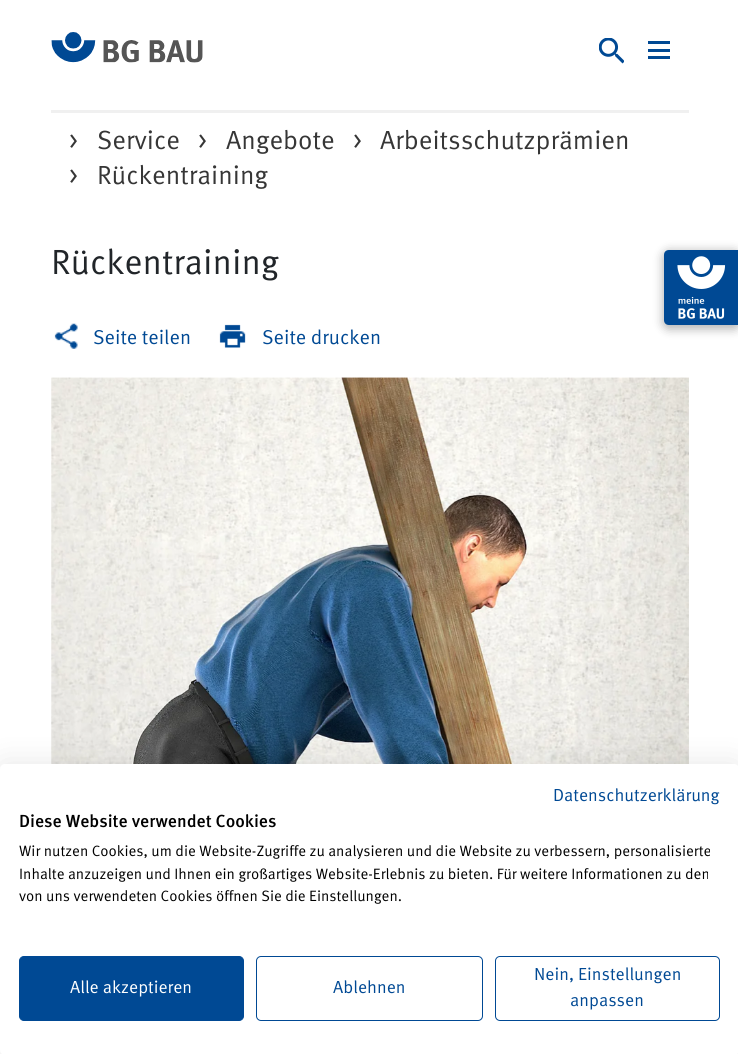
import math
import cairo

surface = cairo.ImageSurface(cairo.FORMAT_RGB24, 738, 1054)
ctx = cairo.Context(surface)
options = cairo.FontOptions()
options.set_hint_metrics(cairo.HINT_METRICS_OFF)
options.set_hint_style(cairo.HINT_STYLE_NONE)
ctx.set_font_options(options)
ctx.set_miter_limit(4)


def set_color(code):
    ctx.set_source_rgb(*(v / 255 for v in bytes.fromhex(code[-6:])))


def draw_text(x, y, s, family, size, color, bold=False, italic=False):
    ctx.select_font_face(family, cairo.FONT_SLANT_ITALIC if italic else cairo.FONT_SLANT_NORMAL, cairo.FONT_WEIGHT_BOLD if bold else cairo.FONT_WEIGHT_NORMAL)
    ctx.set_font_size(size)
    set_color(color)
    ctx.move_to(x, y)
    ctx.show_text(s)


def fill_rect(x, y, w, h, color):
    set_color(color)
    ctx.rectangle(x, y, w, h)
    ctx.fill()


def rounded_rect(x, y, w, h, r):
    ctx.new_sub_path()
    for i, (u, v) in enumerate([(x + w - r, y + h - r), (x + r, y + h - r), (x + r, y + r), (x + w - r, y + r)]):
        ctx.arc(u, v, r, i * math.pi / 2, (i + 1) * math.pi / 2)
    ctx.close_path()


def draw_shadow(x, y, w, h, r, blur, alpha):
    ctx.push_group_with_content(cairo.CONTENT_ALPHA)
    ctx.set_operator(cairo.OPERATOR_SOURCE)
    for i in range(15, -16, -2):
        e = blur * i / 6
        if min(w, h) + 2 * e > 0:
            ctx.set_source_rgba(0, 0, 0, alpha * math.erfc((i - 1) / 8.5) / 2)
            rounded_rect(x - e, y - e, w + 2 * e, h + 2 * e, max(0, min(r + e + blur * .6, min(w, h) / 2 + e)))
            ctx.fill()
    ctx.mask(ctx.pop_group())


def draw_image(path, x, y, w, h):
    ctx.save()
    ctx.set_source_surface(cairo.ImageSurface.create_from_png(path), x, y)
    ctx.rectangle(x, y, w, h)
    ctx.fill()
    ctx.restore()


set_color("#ffffff")
ctx.paint()
draw_image("assets/img1.png", 51, 32, 152, 31)
fill_rect(648, 49, 22, 3, "#004994")
fill_rect(648, 41, 22, 3, "#004994")
fill_rect(648, 56, 22, 3, "#004994")
draw_image("assets/img2.png", 599, 38, 25, 26)
fill_rect(51, 110, 638, 3, "#f0f0f0")
draw_text(69, 149, ">", "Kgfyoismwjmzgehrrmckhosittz", 26.25, "#363636")
draw_text(97, 149, "Service", "Kgfyoismwjmzgehrrmckhosittz", 26.25, "#363636")
draw_text(198, 149, ">", "Kgfyoismwjmzgehrrmckhosittz", 26.25, "#363636")
draw_text(226, 149, "Angebote", "Kgfyoismwjmzgehrrmckhosittz", 26.25, "#363636")
draw_text(353, 149, ">", "Kgfyoismwjmzgehrrmckhosittz", 26.25, "#363636")
draw_text(380, 149, "Arbeitsschutzprämien", "Kgfyoismwjmzgehrrmckhosittz", 26.25, "#363636")
draw_text(69, 184, ">", "Kgfyoismwjmzgehrrmckhosittz", 26.25, "#363636")
draw_text(97, 184, "Rückentraining", "Kgfyoismwjmzgehrrmckhosittz", 26.25, "#363636")
draw_text(51, 274, "Rückentraining", "Kgfyoismwjmzgehrrmckhosittz", 35, "#212529")
draw_image("assets/img3.png", 54, 323, 24, 26)
draw_text(93, 344, "Seite teilen", "Kgfyoismwjmzgehrrmckhosittz", 20, "#004994")
draw_image("assets/img4.png", 219, 324, 27, 24)
draw_text(262, 344, "Seite drucken", "Kgfyoismwjmzgehrrmckhosittz", 20, "#004994")
draw_image("assets/img5.png", 51, 377, 638, 387)
set_color("#000000")
draw_shadow(663, 251, 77, 78, 6, 5, 0.3)
set_color("#004994")
ctx.new_path()
ctx.move_to(669, 250)
ctx.line_to(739, 250)
ctx.line_to(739, 325)
ctx.line_to(669, 325)
ctx.curve_to(666, 325, 664, 323, 664, 320)
ctx.line_to(664, 255)
ctx.curve_to(664, 252, 666, 250, 669, 250)
ctx.close_path()
ctx.fill()
draw_image("assets/img6.png", 677, 256, 49, 63)
set_color("#000000")
draw_shadow(0, 764, 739, 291, 5, 15, 0.1)
set_color("#ffffff")
rounded_rect(0, 764, 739, 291, 5)
ctx.fill()
draw_text(553, 801, "Datenschutzerklärung", "Kgfyoismwjmzgehrrmckhosittz", 17.5, "#004994")
draw_text(19, 827, "Diese Website verwendet Cookies", "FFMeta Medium", 17.5, "#000000")
draw_text(19, 856, "Wir nutzen Cookies, um die Website-Zugriffe zu analysieren und die Website zu verbessern, personalisierte", "Kgfyoismwjmzgehrrmckhosittz", 15, "#000000")
draw_text(19, 879, "Inhalte anzuzeigen und Ihnen ein großartiges Website-Erlebnis zu bieten. Für weitere Informationen zu den", "Kgfyoismwjmzgehrrmckhosittz", 15, "#000000")
draw_text(19, 901, "von uns verwendeten Cookies öffnen Sie die Einstellungen.", "Kgfyoismwjmzgehrrmckhosittz", 15, "#000000")
set_color("#004994")
rounded_rect(19.5, 956.5, 224, 64, 4.5)
ctx.fill_preserve()
ctx.set_line_width(1)
ctx.stroke()
draw_text(70, 993, "Alle akzeptieren", "Kgfyoismwjmzgehrrmckhosittz", 17.5, "#ffffff")
rounded_rect(256.5, 956.5, 226, 64, 4.5)
set_color("#004994")
ctx.stroke()
draw_text(333, 993, "Ablehnen", "Kgfyoismwjmzgehrrmckhosittz", 17.5, "#004994")
rounded_rect(495.5, 956.5, 224, 64, 4.5)
ctx.stroke()
draw_text(534, 980, "Nein, Einstellungen", "Kgfyoismwjmzgehrrmckhosittz", 17.5, "#004994")
draw_text(570, 1006, "anpassen", "Kgfyoismwjmzgehrrmckhosittz", 17.5, "#004994")
surface.write_to_png("output.png")
